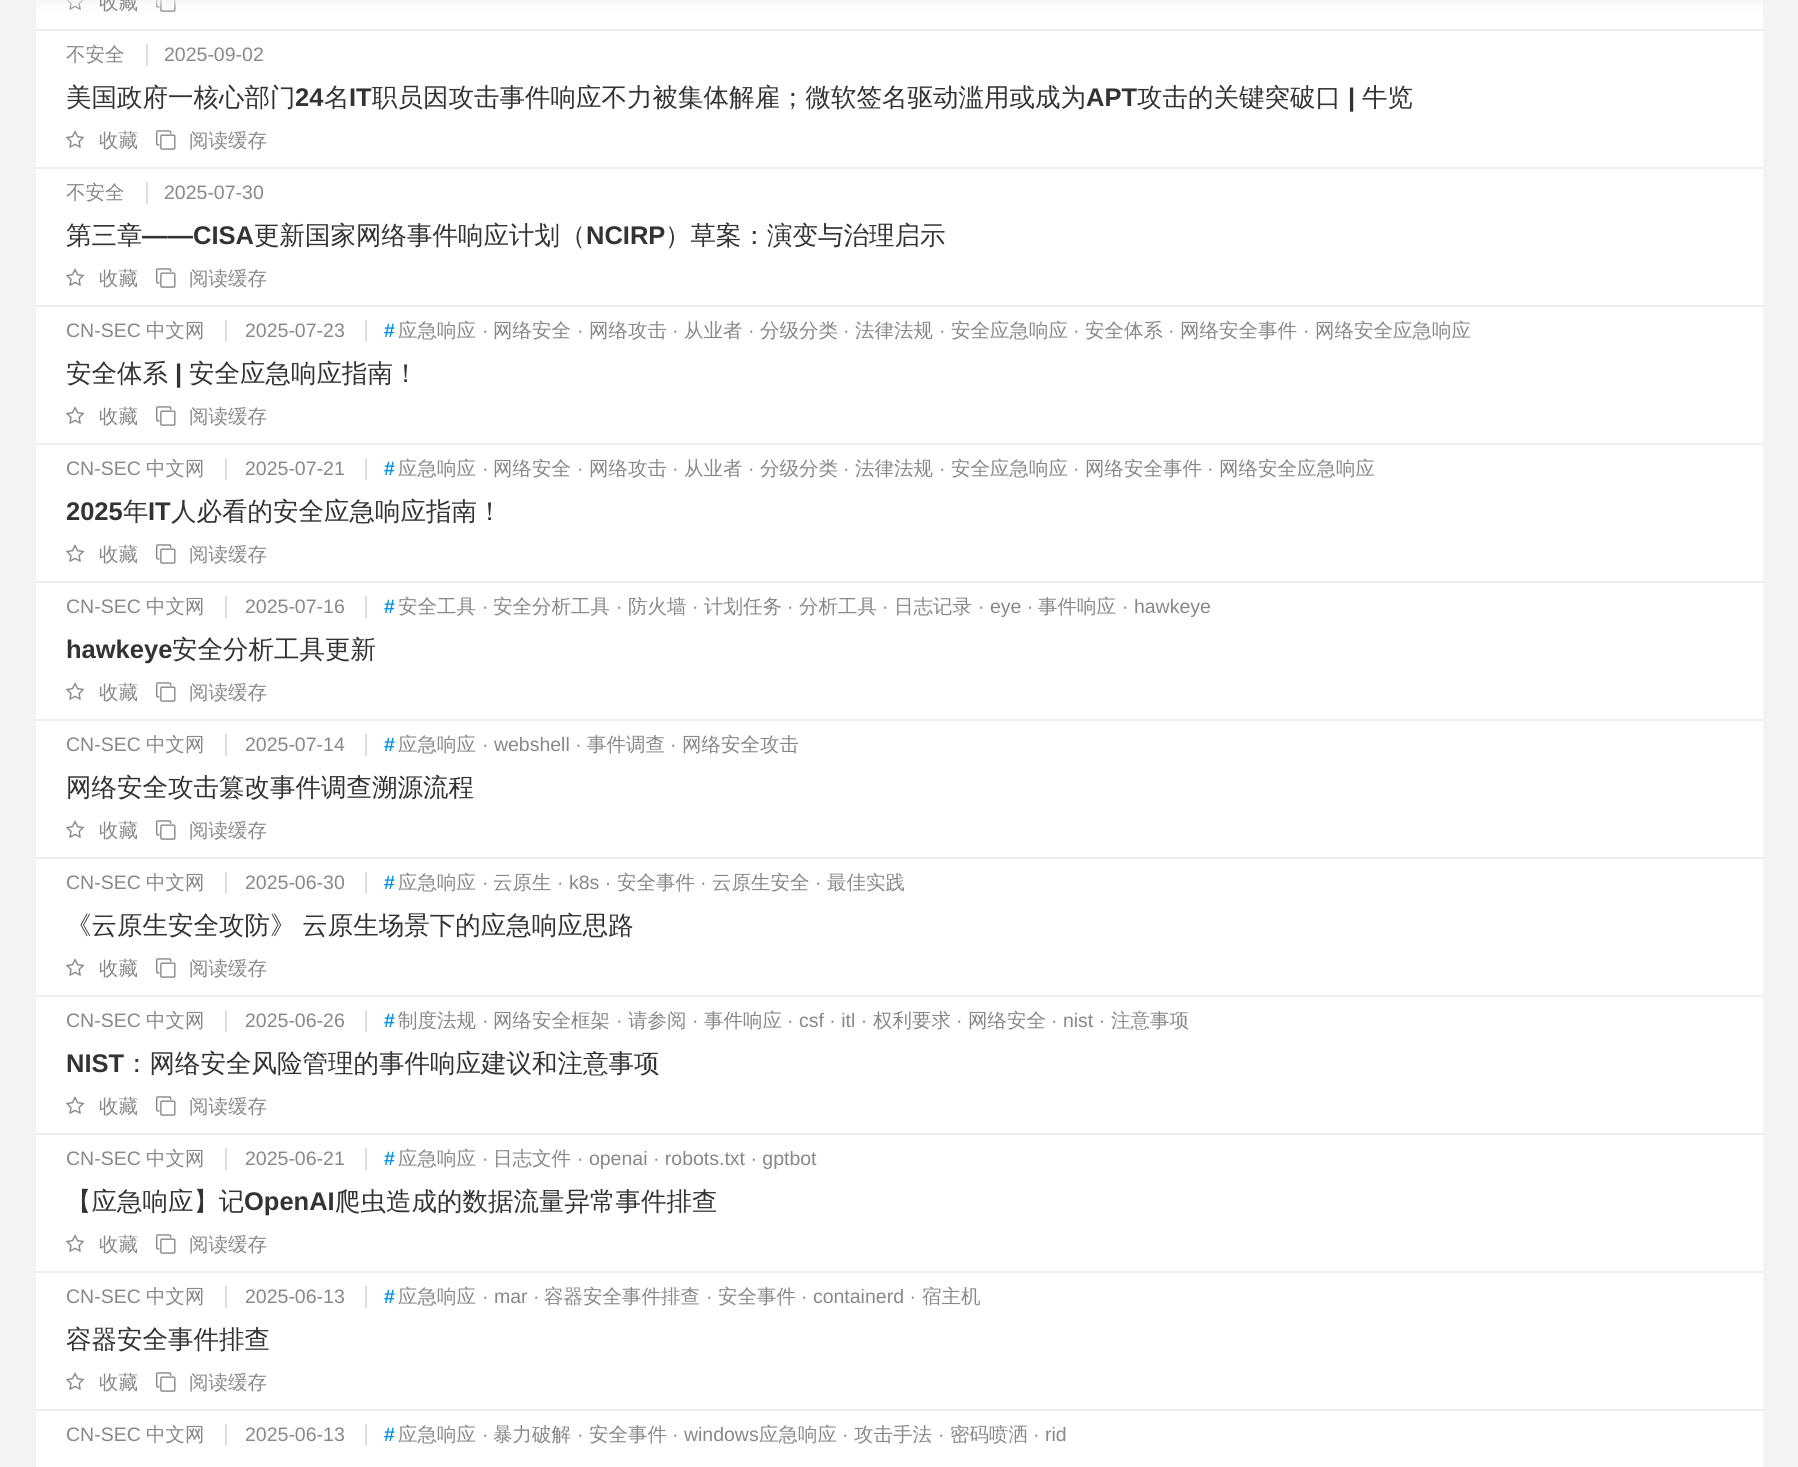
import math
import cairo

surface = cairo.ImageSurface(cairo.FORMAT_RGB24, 1798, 1467)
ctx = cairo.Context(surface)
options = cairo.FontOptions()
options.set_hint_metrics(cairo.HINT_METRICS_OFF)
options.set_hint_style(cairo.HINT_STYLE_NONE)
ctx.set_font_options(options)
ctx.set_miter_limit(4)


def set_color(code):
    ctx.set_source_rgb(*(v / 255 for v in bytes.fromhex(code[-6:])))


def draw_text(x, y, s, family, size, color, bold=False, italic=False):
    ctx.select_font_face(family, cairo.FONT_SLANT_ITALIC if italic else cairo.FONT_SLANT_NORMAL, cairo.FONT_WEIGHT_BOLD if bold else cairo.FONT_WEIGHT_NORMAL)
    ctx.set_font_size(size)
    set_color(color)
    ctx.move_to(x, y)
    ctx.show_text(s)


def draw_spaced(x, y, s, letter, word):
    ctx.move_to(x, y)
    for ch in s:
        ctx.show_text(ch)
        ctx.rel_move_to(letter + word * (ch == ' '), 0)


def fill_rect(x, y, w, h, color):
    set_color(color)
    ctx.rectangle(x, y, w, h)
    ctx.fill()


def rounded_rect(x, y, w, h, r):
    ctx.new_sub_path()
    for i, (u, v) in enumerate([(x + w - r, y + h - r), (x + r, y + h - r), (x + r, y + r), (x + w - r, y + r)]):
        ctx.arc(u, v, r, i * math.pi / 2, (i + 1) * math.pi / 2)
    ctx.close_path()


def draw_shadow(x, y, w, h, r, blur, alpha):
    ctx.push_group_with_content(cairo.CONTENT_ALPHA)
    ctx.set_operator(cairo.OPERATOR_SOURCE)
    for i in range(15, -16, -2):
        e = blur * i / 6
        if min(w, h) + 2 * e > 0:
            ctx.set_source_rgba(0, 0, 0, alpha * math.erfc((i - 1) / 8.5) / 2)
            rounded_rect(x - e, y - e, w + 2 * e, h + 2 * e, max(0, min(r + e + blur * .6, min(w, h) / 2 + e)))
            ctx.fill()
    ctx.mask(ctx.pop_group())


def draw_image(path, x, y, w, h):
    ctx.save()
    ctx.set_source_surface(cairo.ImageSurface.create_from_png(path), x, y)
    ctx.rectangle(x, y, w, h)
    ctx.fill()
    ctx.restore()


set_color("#f2f3f5")
ctx.paint()
fill_rect(36, 0, 1727, 1467, "#ffffff")
draw_image("assets/img1.png", 66, 0, 18, 10)
draw_image("assets/img2.png", 156, 0, 20, 12)
set_color("#f2f3f5")
draw_shadow(0, -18, 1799, 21, 0, 6, 1)
fill_rect(36, 29, 1727, 2, "#eeeeee")
draw_text(99, 9, "收藏", "WenQuanYi Zen Hei Medium", 19.5, "#888888")
fill_rect(36, 167, 1727, 2, "#eeeeee")
draw_text(66, 61, "不安全", "WenQuanYi Zen Hei Medium", 19.5, "#888888")
draw_text(164, 61, "2025-09-02", "Liberation Sans", 19.5, "#888888")
fill_rect(146, 44, 2, 22, "#dddddd")
draw_text(66, 106, "美国政府一核心部门", "WenQuanYi Zen Hei Medium", 25.5, "#333333")
draw_text(295, 106, "24", "Liberation Sans", 25.5, "#333333", bold=True)
draw_text(324, 106, "名", "WenQuanYi Zen Hei Medium", 25.5, "#333333")
draw_text(349, 106, "IT", "Liberation Sans", 25.5, "#333333", bold=True)
draw_text(372, 106, "职员因攻击事件响应不力被集体解雇；微软签名驱动滥用或成为", "WenQuanYi Zen Hei Medium", 25.5, "#333333")
draw_text(1086, 106, "APT", "Liberation Sans", 25.5, "#333333", bold=True)
draw_text(1137, 106, "攻击的关键突破口", "WenQuanYi Zen Hei Medium", 25.5, "#333333")
draw_text(1348, 106, "|", "Liberation Sans", 25.5, "#333333", bold=True)
draw_text(1362, 106, "牛览", "WenQuanYi Zen Hei Medium", 25.5, "#333333")
draw_image("assets/img3.png", 66, 130, 18, 18)
draw_text(99, 147, "收藏", "WenQuanYi Zen Hei Medium", 19.5, "#888888")
draw_image("assets/img4.png", 156, 130, 20, 20)
draw_text(189, 147, "阅读缓存", "WenQuanYi Zen Hei Medium", 19.5, "#888888")
fill_rect(36, 305, 1727, 2, "#eeeeee")
draw_text(66, 199, "不安全", "WenQuanYi Zen Hei Medium", 19.5, "#888888")
draw_text(164, 199, "2025-07-30", "Liberation Sans", 19.5, "#888888")
fill_rect(146, 182, 2, 22, "#dddddd")
draw_text(66, 244, "第三章", "WenQuanYi Zen Hei Medium", 25.5, "#333333")
draw_text(142, 244, "——CISA", "Liberation Sans", 25.5, "#333333", bold=True)
draw_text(254, 244, "更新国家网络事件响应计划（", "WenQuanYi Zen Hei Medium", 25.5, "#333333")
draw_text(586, 244, "NCIRP", "Liberation Sans", 25.5, "#333333", bold=True)
draw_text(665, 244, "）草案：演变与治理启示", "WenQuanYi Zen Hei Medium", 25.5, "#333333")
draw_image("assets/img3.png", 66, 268, 18, 18)
draw_text(99, 285, "收藏", "WenQuanYi Zen Hei Medium", 19.5, "#888888")
draw_image("assets/img4.png", 156, 268, 20, 20)
draw_text(189, 285, "阅读缓存", "WenQuanYi Zen Hei Medium", 19.5, "#888888")
fill_rect(36, 443, 1727, 2, "#eeeeee")
draw_text(66, 337, "CN-SEC", "Liberation Sans", 19.5, "#888888")
draw_text(146, 337, "中文网", "WenQuanYi Zen Hei Medium", 19.5, "#888888")
draw_text(245, 337, "2025-07-23", "Liberation Sans", 19.5, "#888888")
fill_rect(225, 320, 2, 22, "#dddddd")
draw_text(384, 337, "#", "Liberation Sans", 19.5, "#0e94e7", bold=True)
fill_rect(365, 320, 2, 22, "#dddddd")
draw_text(398, 337, "应急响应", "WenQuanYi Zen Hei Medium", 19.5, "#888888")
draw_text(482, 337, "·", "Liberation Sans", 19.5, "#888888")
draw_text(493, 337, "网络安全", "WenQuanYi Zen Hei Medium", 19.5, "#888888")
draw_text(577, 337, "·", "Liberation Sans", 19.5, "#888888")
draw_text(589, 337, "网络攻击", "WenQuanYi Zen Hei Medium", 19.5, "#888888")
draw_text(672, 337, "·", "Liberation Sans", 19.5, "#888888")
draw_text(684, 337, "从业者", "WenQuanYi Zen Hei Medium", 19.5, "#888888")
draw_text(748, 337, "·", "Liberation Sans", 19.5, "#888888")
draw_text(760, 337, "分级分类", "WenQuanYi Zen Hei Medium", 19.5, "#888888")
draw_text(843, 337, "·", "Liberation Sans", 19.5, "#888888")
draw_text(855, 337, "法律法规", "WenQuanYi Zen Hei Medium", 19.5, "#888888")
draw_text(939, 337, "·", "Liberation Sans", 19.5, "#888888")
draw_text(951, 337, "安全应急响应", "WenQuanYi Zen Hei Medium", 19.5, "#888888")
draw_text(1073, 337, "·", "Liberation Sans", 19.5, "#888888")
draw_text(1085, 337, "安全体系", "WenQuanYi Zen Hei Medium", 19.5, "#888888")
draw_text(1168, 337, "·", "Liberation Sans", 19.5, "#888888")
draw_text(1180, 337, "网络安全事件", "WenQuanYi Zen Hei Medium", 19.5, "#888888")
draw_text(1303, 337, "·", "Liberation Sans", 19.5, "#888888")
draw_text(1315, 337, "网络安全应急响应", "WenQuanYi Zen Hei Medium", 19.5, "#888888")
draw_text(66, 382, "安全体系", "WenQuanYi Zen Hei Medium", 25.5, "#333333")
draw_text(175, 382, "|", "Liberation Sans", 25.5, "#333333", bold=True)
draw_text(189, 382, "安全应急响应指南！", "WenQuanYi Zen Hei Medium", 25.5, "#333333")
draw_image("assets/img3.png", 66, 406, 18, 18)
draw_text(99, 423, "收藏", "WenQuanYi Zen Hei Medium", 19.5, "#888888")
draw_image("assets/img4.png", 156, 406, 20, 20)
draw_text(189, 423, "阅读缓存", "WenQuanYi Zen Hei Medium", 19.5, "#888888")
fill_rect(36, 581, 1727, 2, "#eeeeee")
draw_text(66, 475, "CN-SEC", "Liberation Sans", 19.5, "#888888")
draw_text(146, 475, "中文网", "WenQuanYi Zen Hei Medium", 19.5, "#888888")
draw_text(245, 475, "2025-07-21", "Liberation Sans", 19.5, "#888888")
fill_rect(225, 458, 2, 22, "#dddddd")
draw_text(384, 475, "#", "Liberation Sans", 19.5, "#0e94e7", bold=True)
fill_rect(365, 458, 2, 22, "#dddddd")
draw_text(398, 475, "应急响应", "WenQuanYi Zen Hei Medium", 19.5, "#888888")
draw_text(482, 475, "·", "Liberation Sans", 19.5, "#888888")
draw_text(493, 475, "网络安全", "WenQuanYi Zen Hei Medium", 19.5, "#888888")
draw_text(577, 475, "·", "Liberation Sans", 19.5, "#888888")
draw_text(589, 475, "网络攻击", "WenQuanYi Zen Hei Medium", 19.5, "#888888")
draw_text(672, 475, "·", "Liberation Sans", 19.5, "#888888")
draw_text(684, 475, "从业者", "WenQuanYi Zen Hei Medium", 19.5, "#888888")
draw_text(748, 475, "·", "Liberation Sans", 19.5, "#888888")
draw_text(760, 475, "分级分类", "WenQuanYi Zen Hei Medium", 19.5, "#888888")
draw_text(843, 475, "·", "Liberation Sans", 19.5, "#888888")
draw_text(855, 475, "法律法规", "WenQuanYi Zen Hei Medium", 19.5, "#888888")
draw_text(939, 475, "·", "Liberation Sans", 19.5, "#888888")
draw_text(951, 475, "安全应急响应", "WenQuanYi Zen Hei Medium", 19.5, "#888888")
draw_text(1073, 475, "·", "Liberation Sans", 19.5, "#888888")
draw_text(1085, 475, "网络安全事件", "WenQuanYi Zen Hei Medium", 19.5, "#888888")
draw_text(1207, 475, "·", "Liberation Sans", 19.5, "#888888")
draw_text(1219, 475, "网络安全应急响应", "WenQuanYi Zen Hei Medium", 19.5, "#888888")
draw_text(66, 520, "2025", "Liberation Sans", 25.5, "#333333", bold=True)
draw_text(123, 520, "年", "WenQuanYi Zen Hei Medium", 25.5, "#333333")
draw_text(148, 520, "IT", "Liberation Sans", 25.5, "#333333", bold=True)
draw_text(171, 520, "人必看的安全应急响应指南！", "WenQuanYi Zen Hei Medium", 25.5, "#333333")
draw_image("assets/img3.png", 66, 544, 18, 18)
draw_text(99, 561, "收藏", "WenQuanYi Zen Hei Medium", 19.5, "#888888")
draw_image("assets/img4.png", 156, 544, 20, 20)
draw_text(189, 561, "阅读缓存", "WenQuanYi Zen Hei Medium", 19.5, "#888888")
fill_rect(36, 719, 1727, 2, "#eeeeee")
draw_text(66, 613, "CN-SEC", "Liberation Sans", 19.5, "#888888")
draw_text(146, 613, "中文网", "WenQuanYi Zen Hei Medium", 19.5, "#888888")
draw_text(245, 613, "2025-07-16", "Liberation Sans", 19.5, "#888888")
fill_rect(225, 596, 2, 22, "#dddddd")
draw_text(384, 613, "#", "Liberation Sans", 19.5, "#0e94e7", bold=True)
fill_rect(365, 596, 2, 22, "#dddddd")
draw_text(398, 613, "安全工具", "WenQuanYi Zen Hei Medium", 19.5, "#888888")
draw_text(482, 613, "·", "Liberation Sans", 19.5, "#888888")
draw_text(493, 613, "安全分析工具", "WenQuanYi Zen Hei Medium", 19.5, "#888888")
draw_text(616, 613, "·", "Liberation Sans", 19.5, "#888888")
draw_text(628, 613, "防火墙", "WenQuanYi Zen Hei Medium", 19.5, "#888888")
draw_text(692, 613, "·", "Liberation Sans", 19.5, "#888888")
draw_text(704, 613, "计划任务", "WenQuanYi Zen Hei Medium", 19.5, "#888888")
draw_text(787, 613, "·", "Liberation Sans", 19.5, "#888888")
draw_text(799, 613, "分析工具", "WenQuanYi Zen Hei Medium", 19.5, "#888888")
draw_text(882, 613, "·", "Liberation Sans", 19.5, "#888888")
draw_text(894, 613, "日志记录", "WenQuanYi Zen Hei Medium", 19.5, "#888888")
draw_text(978, 613, "· eye ·", "Liberation Sans", 19.5, "#888888")
draw_text(1038, 613, "事件响应", "WenQuanYi Zen Hei Medium", 19.5, "#888888")
draw_text(1122, 613, "· hawkeye", "Liberation Sans", 19.5, "#888888")
draw_text(66, 658, "hawkeye", "Liberation Sans", 25.5, "#333333", bold=True)
draw_text(172, 658, "安全分析工具更新", "WenQuanYi Zen Hei Medium", 25.5, "#333333")
draw_image("assets/img3.png", 66, 682, 18, 18)
draw_text(99, 699, "收藏", "WenQuanYi Zen Hei Medium", 19.5, "#888888")
draw_image("assets/img4.png", 156, 682, 20, 20)
draw_text(189, 699, "阅读缓存", "WenQuanYi Zen Hei Medium", 19.5, "#888888")
fill_rect(36, 857, 1727, 2, "#eeeeee")
draw_text(66, 751, "CN-SEC", "Liberation Sans", 19.5, "#888888")
draw_text(146, 751, "中文网", "WenQuanYi Zen Hei Medium", 19.5, "#888888")
draw_text(245, 751, "2025-07-14", "Liberation Sans", 19.5, "#888888")
fill_rect(225, 734, 2, 22, "#dddddd")
draw_text(384, 751, "#", "Liberation Sans", 19.5, "#0e94e7", bold=True)
fill_rect(365, 734, 2, 22, "#dddddd")
draw_text(398, 751, "应急响应", "WenQuanYi Zen Hei Medium", 19.5, "#888888")
draw_text(482, 751, "· webshell ·", "Liberation Sans", 19.5, "#888888")
draw_text(587, 751, "事件调查", "WenQuanYi Zen Hei Medium", 19.5, "#888888")
draw_text(670, 751, "·", "Liberation Sans", 19.5, "#888888")
draw_text(682, 751, "网络安全攻击", "WenQuanYi Zen Hei Medium", 19.5, "#888888")
draw_text(66, 796, "网络安全攻击篡改事件调查溯源流程", "WenQuanYi Zen Hei Medium", 25.5, "#333333")
draw_image("assets/img3.png", 66, 820, 18, 18)
draw_text(99, 837, "收藏", "WenQuanYi Zen Hei Medium", 19.5, "#888888")
draw_image("assets/img4.png", 156, 820, 20, 20)
draw_text(189, 837, "阅读缓存", "WenQuanYi Zen Hei Medium", 19.5, "#888888")
fill_rect(36, 995, 1727, 2, "#eeeeee")
draw_text(66, 889, "CN-SEC", "Liberation Sans", 19.5, "#888888")
draw_text(146, 889, "中文网", "WenQuanYi Zen Hei Medium", 19.5, "#888888")
draw_text(245, 889, "2025-06-30", "Liberation Sans", 19.5, "#888888")
fill_rect(225, 872, 2, 22, "#dddddd")
draw_text(384, 889, "#", "Liberation Sans", 19.5, "#0e94e7", bold=True)
fill_rect(365, 872, 2, 22, "#dddddd")
draw_text(398, 889, "应急响应", "WenQuanYi Zen Hei Medium", 19.5, "#888888")
draw_text(482, 889, "·", "Liberation Sans", 19.5, "#888888")
draw_text(493, 889, "云原生", "WenQuanYi Zen Hei Medium", 19.5, "#888888")
draw_text(557, 889, "· k8s ·", "Liberation Sans", 19.5, "#888888")
draw_text(617, 889, "安全事件", "WenQuanYi Zen Hei Medium", 19.5, "#888888")
draw_text(700, 889, "·", "Liberation Sans", 19.5, "#888888")
draw_text(712, 889, "云原生安全", "WenQuanYi Zen Hei Medium", 19.5, "#888888")
draw_text(815, 889, "·", "Liberation Sans", 19.5, "#888888")
draw_text(827, 889, "最佳实践", "WenQuanYi Zen Hei Medium", 19.5, "#888888")
ctx.set_font_size(25.5)
set_color("#333333")
draw_spaced(66, 934, "《云原生安全攻防》 云原生场景下的应急响应思路", 0, -1)
draw_image("assets/img3.png", 66, 958, 18, 18)
draw_text(99, 975, "收藏", "WenQuanYi Zen Hei Medium", 19.5, "#888888")
draw_image("assets/img4.png", 156, 958, 20, 20)
draw_text(189, 975, "阅读缓存", "WenQuanYi Zen Hei Medium", 19.5, "#888888")
fill_rect(36, 1133, 1727, 2, "#eeeeee")
draw_text(66, 1027, "CN-SEC", "Liberation Sans", 19.5, "#888888")
draw_text(146, 1027, "中文网", "WenQuanYi Zen Hei Medium", 19.5, "#888888")
draw_text(245, 1027, "2025-06-26", "Liberation Sans", 19.5, "#888888")
fill_rect(225, 1010, 2, 22, "#dddddd")
draw_text(384, 1027, "#", "Liberation Sans", 19.5, "#0e94e7", bold=True)
fill_rect(365, 1010, 2, 22, "#dddddd")
draw_text(398, 1027, "制度法规", "WenQuanYi Zen Hei Medium", 19.5, "#888888")
draw_text(482, 1027, "·", "Liberation Sans", 19.5, "#888888")
draw_text(493, 1027, "网络安全框架", "WenQuanYi Zen Hei Medium", 19.5, "#888888")
draw_text(616, 1027, "·", "Liberation Sans", 19.5, "#888888")
draw_text(628, 1027, "请参阅", "WenQuanYi Zen Hei Medium", 19.5, "#888888")
draw_text(692, 1027, "·", "Liberation Sans", 19.5, "#888888")
draw_text(704, 1027, "事件响应", "WenQuanYi Zen Hei Medium", 19.5, "#888888")
draw_text(787, 1027, "· csf · itl ·", "Liberation Sans", 19.5, "#888888")
draw_text(873, 1027, "权利要求", "WenQuanYi Zen Hei Medium", 19.5, "#888888")
draw_text(956, 1027, "·", "Liberation Sans", 19.5, "#888888")
draw_text(968, 1027, "网络安全", "WenQuanYi Zen Hei Medium", 19.5, "#888888")
draw_text(1051, 1027, "· nist ·", "Liberation Sans", 19.5, "#888888")
draw_text(1111, 1027, "注意事项", "WenQuanYi Zen Hei Medium", 19.5, "#888888")
draw_text(66, 1072, "NIST", "Liberation Sans", 25.5, "#333333", bold=True)
draw_text(124, 1072, "：网络安全风险管理的事件响应建议和注意事项", "WenQuanYi Zen Hei Medium", 25.5, "#333333")
draw_image("assets/img3.png", 66, 1096, 18, 18)
draw_text(99, 1113, "收藏", "WenQuanYi Zen Hei Medium", 19.5, "#888888")
draw_image("assets/img4.png", 156, 1096, 20, 20)
draw_text(189, 1113, "阅读缓存", "WenQuanYi Zen Hei Medium", 19.5, "#888888")
fill_rect(36, 1271, 1727, 2, "#eeeeee")
draw_text(66, 1165, "CN-SEC", "Liberation Sans", 19.5, "#888888")
draw_text(146, 1165, "中文网", "WenQuanYi Zen Hei Medium", 19.5, "#888888")
draw_text(245, 1165, "2025-06-21", "Liberation Sans", 19.5, "#888888")
fill_rect(225, 1148, 2, 22, "#dddddd")
draw_text(384, 1165, "#", "Liberation Sans", 19.5, "#0e94e7", bold=True)
fill_rect(365, 1148, 2, 22, "#dddddd")
draw_text(398, 1165, "应急响应", "WenQuanYi Zen Hei Medium", 19.5, "#888888")
draw_text(482, 1165, "·", "Liberation Sans", 19.5, "#888888")
draw_text(493, 1165, "日志文件", "WenQuanYi Zen Hei Medium", 19.5, "#888888")
draw_text(577, 1165, "· openai · robots.txt · gptbot", "Liberation Sans", 19.5, "#888888")
draw_text(66, 1210, "【应急响应】记", "WenQuanYi Zen Hei Medium", 25.5, "#333333")
draw_text(244, 1210, "OpenAI", "Liberation Sans", 25.5, "#333333", bold=True)
draw_text(335, 1210, "爬虫造成的数据流量异常事件排查", "WenQuanYi Zen Hei Medium", 25.5, "#333333")
draw_image("assets/img3.png", 66, 1234, 18, 18)
draw_text(99, 1251, "收藏", "WenQuanYi Zen Hei Medium", 19.5, "#888888")
draw_image("assets/img4.png", 156, 1234, 20, 20)
draw_text(189, 1251, "阅读缓存", "WenQuanYi Zen Hei Medium", 19.5, "#888888")
fill_rect(36, 1409, 1727, 2, "#eeeeee")
draw_text(66, 1303, "CN-SEC", "Liberation Sans", 19.5, "#888888")
draw_text(146, 1303, "中文网", "WenQuanYi Zen Hei Medium", 19.5, "#888888")
draw_text(245, 1303, "2025-06-13", "Liberation Sans", 19.5, "#888888")
fill_rect(225, 1286, 2, 22, "#dddddd")
draw_text(384, 1303, "#", "Liberation Sans", 19.5, "#0e94e7", bold=True)
fill_rect(365, 1286, 2, 22, "#dddddd")
draw_text(398, 1303, "应急响应", "WenQuanYi Zen Hei Medium", 19.5, "#888888")
draw_text(482, 1303, "· mar ·", "Liberation Sans", 19.5, "#888888")
draw_text(544, 1303, "容器安全事件排查", "WenQuanYi Zen Hei Medium", 19.5, "#888888")
draw_text(706, 1303, "·", "Liberation Sans", 19.5, "#888888")
draw_text(718, 1303, "安全事件", "WenQuanYi Zen Hei Medium", 19.5, "#888888")
draw_text(801, 1303, "· containerd ·", "Liberation Sans", 19.5, "#888888")
draw_text(922, 1303, "宿主机", "WenQuanYi Zen Hei Medium", 19.5, "#888888")
draw_text(66, 1348, "容器安全事件排查", "WenQuanYi Zen Hei Medium", 25.5, "#333333")
draw_image("assets/img3.png", 66, 1372, 18, 18)
draw_text(99, 1389, "收藏", "WenQuanYi Zen Hei Medium", 19.5, "#888888")
draw_image("assets/img4.png", 156, 1372, 20, 20)
draw_text(189, 1389, "阅读缓存", "WenQuanYi Zen Hei Medium", 19.5, "#888888")
draw_text(66, 1441, "CN-SEC", "Liberation Sans", 19.5, "#888888")
draw_text(146, 1441, "中文网", "WenQuanYi Zen Hei Medium", 19.5, "#888888")
draw_text(245, 1441, "2025-06-13", "Liberation Sans", 19.5, "#888888")
fill_rect(225, 1424, 2, 22, "#dddddd")
draw_text(384, 1441, "#", "Liberation Sans", 19.5, "#0e94e7", bold=True)
fill_rect(365, 1424, 2, 22, "#dddddd")
draw_text(398, 1441, "应急响应", "WenQuanYi Zen Hei Medium", 19.5, "#888888")
draw_text(482, 1441, "·", "Liberation Sans", 19.5, "#888888")
draw_text(493, 1441, "暴力破解", "WenQuanYi Zen Hei Medium", 19.5, "#888888")
draw_text(577, 1441, "·", "Liberation Sans", 19.5, "#888888")
draw_text(589, 1441, "安全事件", "WenQuanYi Zen Hei Medium", 19.5, "#888888")
draw_text(672, 1441, "· windows", "Liberation Sans", 19.5, "#888888")
draw_text(759, 1441, "应急响应", "WenQuanYi Zen Hei Medium", 19.5, "#888888")
draw_text(842, 1441, "·", "Liberation Sans", 19.5, "#888888")
draw_text(854, 1441, "攻击手法", "WenQuanYi Zen Hei Medium", 19.5, "#888888")
draw_text(938, 1441, "·", "Liberation Sans", 19.5, "#888888")
draw_text(950, 1441, "密码喷洒", "WenQuanYi Zen Hei Medium", 19.5, "#888888")
draw_text(1033, 1441, "· rid", "Liberation Sans", 19.5, "#888888")
surface.write_to_png("output.png")
